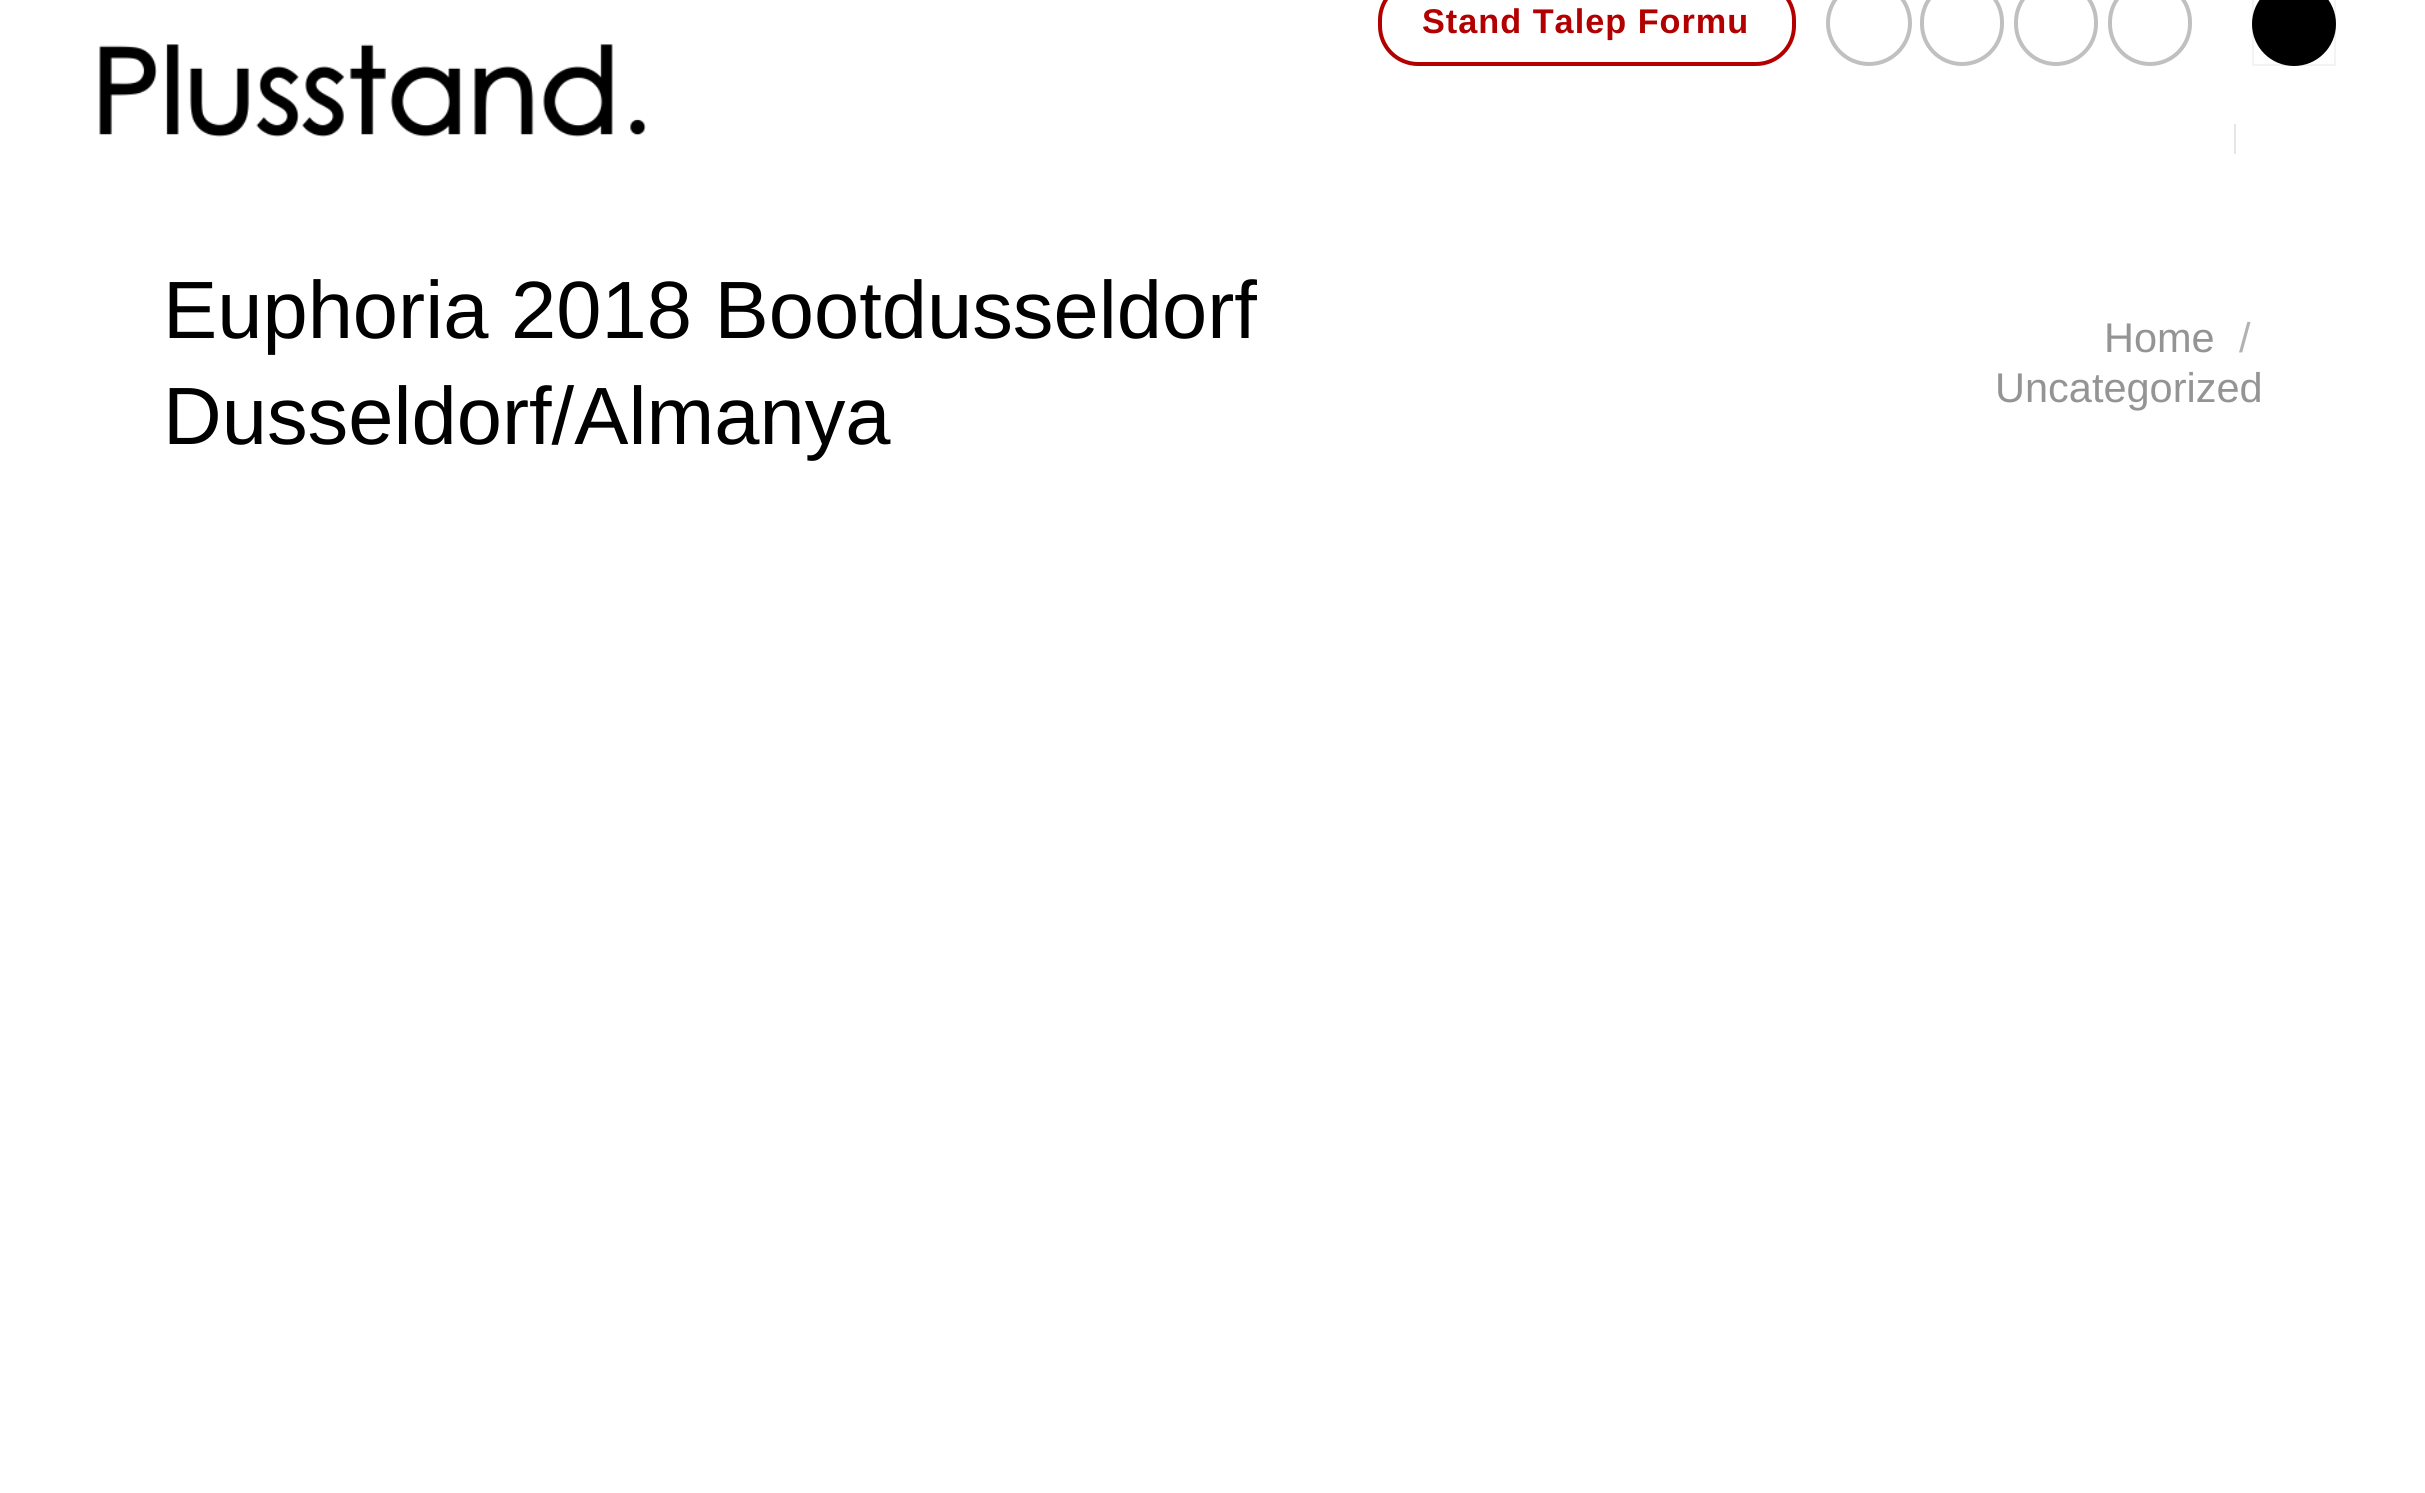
import math
import cairo

surface = cairo.ImageSurface(cairo.FORMAT_RGB24, 2425, 1493)
ctx = cairo.Context(surface)
options = cairo.FontOptions()
options.set_hint_metrics(cairo.HINT_METRICS_OFF)
options.set_hint_style(cairo.HINT_STYLE_NONE)
ctx.set_font_options(options)
ctx.set_miter_limit(4)


def set_color(code):
    ctx.set_source_rgb(*(v / 255 for v in bytes.fromhex(code[-6:])))


def draw_text(x, y, s, family, size, color, bold=False, italic=False):
    ctx.select_font_face(family, cairo.FONT_SLANT_ITALIC if italic else cairo.FONT_SLANT_NORMAL, cairo.FONT_WEIGHT_BOLD if bold else cairo.FONT_WEIGHT_NORMAL)
    ctx.set_font_size(size)
    set_color(color)
    ctx.move_to(x, y)
    ctx.show_text(s)


def draw_spaced(x, y, s, letter, word):
    ctx.move_to(x, y)
    for ch in s:
        ctx.show_text(ch)
        ctx.rel_move_to(letter + word * (ch == ' '), 0)


def fill_rect(x, y, w, h, color):
    set_color(color)
    ctx.rectangle(x, y, w, h)
    ctx.fill()


def rounded_rect(x, y, w, h, r):
    ctx.new_sub_path()
    for i, (u, v) in enumerate([(x + w - r, y + h - r), (x + r, y + h - r), (x + r, y + r), (x + w - r, y + r)]):
        ctx.arc(u, v, r, i * math.pi / 2, (i + 1) * math.pi / 2)
    ctx.close_path()


def draw_image(path, x, y, w, h):
    ctx.save()
    ctx.set_source_surface(cairo.ImageSurface.create_from_png(path), x, y)
    ctx.rectangle(x, y, w, h)
    ctx.fill()
    ctx.restore()


set_color("#ffffff")
ctx.paint()
rounded_rect(1380, -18, 414, 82, 38)
set_color("#b20000")
ctx.set_line_width(4)
ctx.stroke()
ctx.select_font_face("Liberation Sans", cairo.FONT_SLANT_NORMAL, cairo.FONT_WEIGHT_BOLD)
ctx.set_font_size(34.25)
draw_spaced(1422, 33, "Stand Talep Formu", 1, 0)
ctx.new_path()
ctx.arc(1869, 23, 41, 0, 2 * math.pi)
set_color("#c0c0c0")
ctx.stroke()
rounded_rect(1922, -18, 80, 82, 40)
ctx.stroke()
rounded_rect(2016, -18, 80, 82, 40)
ctx.stroke()
rounded_rect(2110, -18, 80, 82, 40)
ctx.stroke()
set_color("#000000")
ctx.arc(2294, 24, 42, 0, 2 * math.pi)
ctx.fill()
ctx.rectangle(2253, -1, 82, 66)
ctx.set_source_rgba(0, 0, 0, 0.05)
ctx.set_line_width(2)
ctx.stroke()
fill_rect(2234, 124, 2, 30, "#e6e6e6")
draw_image("assets/img1.png", 99, 44, 547, 93)
draw_text(163, 338, "Euphoria 2018 Bootdusseldorf", "Liberation Sans", 81.3, "#000000")
draw_text(163, 444, "Dusseldorf/Almanya", "Liberation Sans", 81.3, "#000000")
draw_text(2104, 352, "Home", "Liberation Sans", 41.5, "#949494")
draw_text(2239, 352, "/", "Liberation Sans", 41.5, "#b2b2b2")
draw_text(1995, 402, "Uncategorized", "Liberation Sans", 41.5, "#949494")
surface.write_to_png("output.png")
